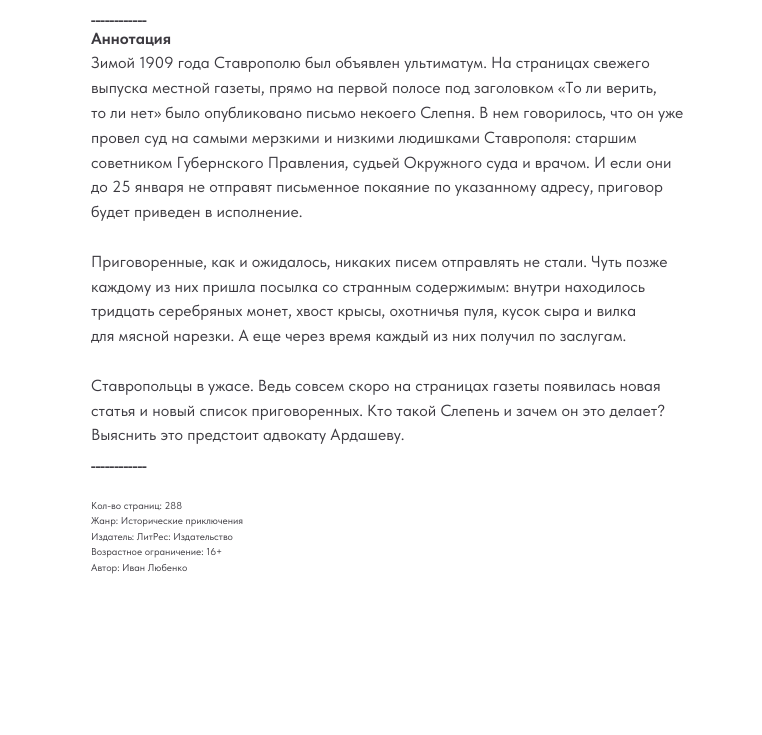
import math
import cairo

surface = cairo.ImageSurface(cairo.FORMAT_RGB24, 762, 735)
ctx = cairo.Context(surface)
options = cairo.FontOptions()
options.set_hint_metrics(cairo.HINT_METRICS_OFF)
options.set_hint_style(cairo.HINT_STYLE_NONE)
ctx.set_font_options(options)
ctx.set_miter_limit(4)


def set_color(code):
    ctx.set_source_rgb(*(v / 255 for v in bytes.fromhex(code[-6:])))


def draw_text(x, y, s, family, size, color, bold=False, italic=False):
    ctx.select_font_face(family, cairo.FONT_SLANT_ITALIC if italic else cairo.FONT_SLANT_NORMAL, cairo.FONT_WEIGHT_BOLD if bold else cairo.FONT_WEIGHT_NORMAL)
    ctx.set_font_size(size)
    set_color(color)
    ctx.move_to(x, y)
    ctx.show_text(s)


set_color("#ffffff")
ctx.paint()
draw_text(91, 19, "____________", "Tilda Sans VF", 16, "#3b393f", bold=True)
draw_text(91, 44, "Аннотация", "Tilda Sans VF", 16, "#3b393f", bold=True)
draw_text(91, 68, "Зимой 1909 года Ставрополю был объявлен ультиматум. На страницах свежего", "Tilda Sans VF", 16, "#3b393f")
draw_text(91, 93, "выпуска местной газеты, прямо на первой полосе под заголовком «То ли верить,", "Tilda Sans VF", 16, "#3b393f")
draw_text(91, 118, "то ли нет» было опубликовано письмо некоего Слепня. В нем говорилось, что он уже", "Tilda Sans VF", 16, "#3b393f")
draw_text(91, 143, "провел суд на самыми мерзкими и низкими людишками Ставрополя: старшим", "Tilda Sans VF", 16, "#3b393f")
draw_text(91, 168, "советником Губернского Правления, судьей Окружного суда и врачом. И если они", "Tilda Sans VF", 16, "#3b393f")
draw_text(91, 192, "до 25 января не отправят письменное покаяние по указанному адресу, приговор", "Tilda Sans VF", 16, "#3b393f")
draw_text(91, 217, "будет приведен в исполнение.", "Tilda Sans VF", 16, "#3b393f")
draw_text(91, 267, "Приговоренные, как и ожидалось, никаких писем отправлять не стали. Чуть позже", "Tilda Sans VF", 16, "#3b393f")
draw_text(91, 292, "каждому из них пришла посылка со странным содержимым: внутри находилось", "Tilda Sans VF", 16, "#3b393f")
draw_text(91, 316, "тридцать серебряных монет, хвост крысы, охотничья пуля, кусок сыра и вилка", "Tilda Sans VF", 16, "#3b393f")
draw_text(91, 341, "для мясной нарезки. А еще через время каждый из них получил по заслугам.", "Tilda Sans VF", 16, "#3b393f")
draw_text(91, 391, "Ставропольцы в ужасе. Ведь совсем скоро на страницах газеты появилась новая", "Tilda Sans VF", 16, "#3b393f")
draw_text(91, 416, "статья и новый список приговоренных. Кто такой Слепень и зачем он это делает?", "Tilda Sans VF", 16, "#3b393f")
draw_text(91, 440, "Выяснить это предстоит адвокату Ардашеву.", "Tilda Sans VF", 16, "#3b393f")
draw_text(91, 465, "____________", "Tilda Sans VF", 16, "#3b393f", bold=True)
draw_text(91, 509, "Кол-во страниц: 288", "Tilda Sans VF", 10, "#3b393f")
draw_text(91, 524, "Жанр: Исторические приключения", "Tilda Sans VF", 10, "#3b393f")
draw_text(91, 540, "Издатель: ЛитРес: Издательство", "Tilda Sans VF", 10, "#3b393f")
draw_text(91, 555, "Возрастное ограничение: 16+", "Tilda Sans VF", 10, "#3b393f")
draw_text(91, 571, "Автор: Иван Любенко", "Tilda Sans VF", 10, "#3b393f")
surface.write_to_png("output.png")
